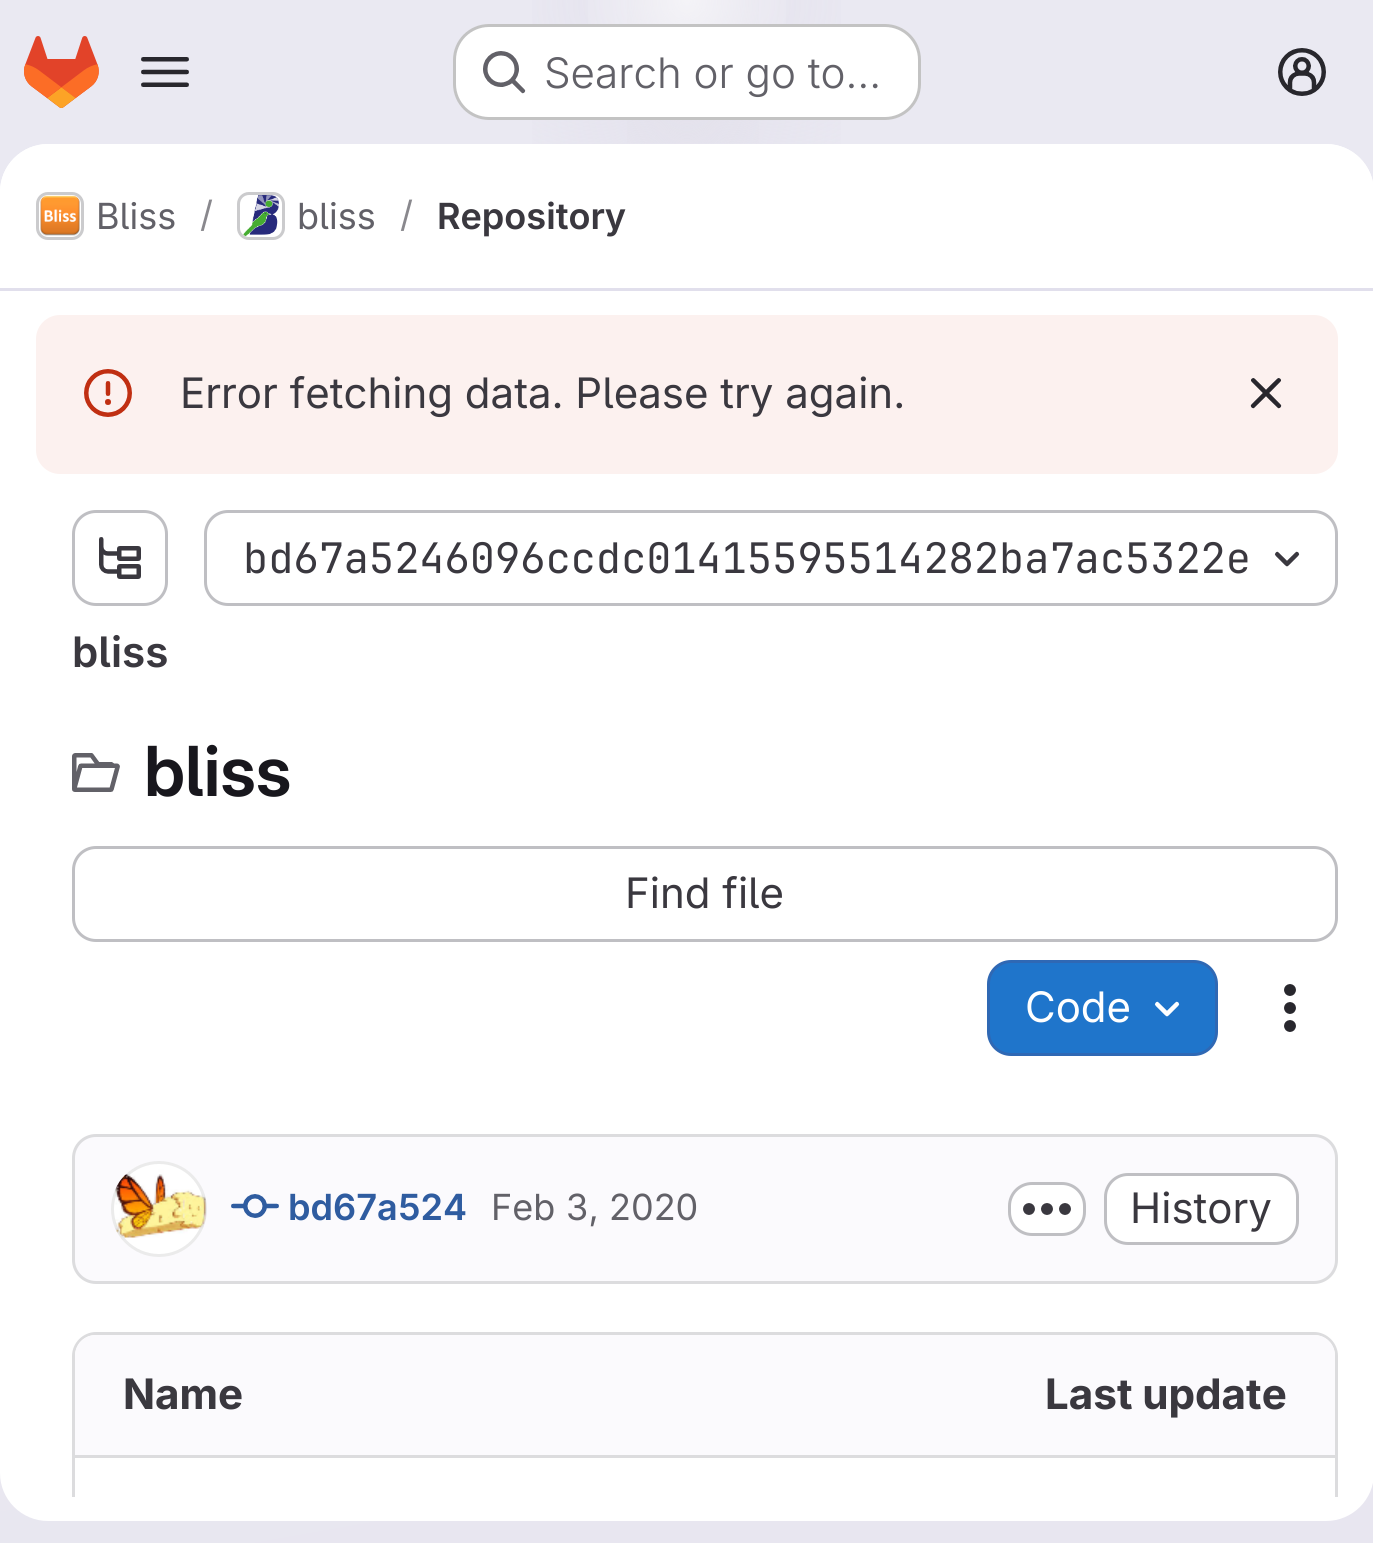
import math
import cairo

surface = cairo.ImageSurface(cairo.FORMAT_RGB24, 1373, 1543)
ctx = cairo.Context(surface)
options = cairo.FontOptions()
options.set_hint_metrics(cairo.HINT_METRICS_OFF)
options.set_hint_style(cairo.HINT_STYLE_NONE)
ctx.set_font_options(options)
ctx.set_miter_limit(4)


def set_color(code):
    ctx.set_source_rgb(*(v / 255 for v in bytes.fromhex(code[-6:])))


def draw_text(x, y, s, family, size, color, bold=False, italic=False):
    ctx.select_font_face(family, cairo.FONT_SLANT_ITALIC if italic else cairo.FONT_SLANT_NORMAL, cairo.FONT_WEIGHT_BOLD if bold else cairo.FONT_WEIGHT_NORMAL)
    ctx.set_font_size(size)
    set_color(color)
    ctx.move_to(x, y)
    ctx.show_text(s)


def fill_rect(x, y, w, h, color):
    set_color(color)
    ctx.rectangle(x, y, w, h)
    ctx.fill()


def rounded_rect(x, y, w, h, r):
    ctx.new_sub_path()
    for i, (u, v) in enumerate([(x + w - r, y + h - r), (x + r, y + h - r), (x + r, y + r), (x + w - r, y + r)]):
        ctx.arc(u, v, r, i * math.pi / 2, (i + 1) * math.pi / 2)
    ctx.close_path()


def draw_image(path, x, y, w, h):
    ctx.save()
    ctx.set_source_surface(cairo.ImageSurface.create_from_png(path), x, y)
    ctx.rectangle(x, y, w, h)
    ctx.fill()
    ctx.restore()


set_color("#ffffff")
ctx.paint()
gradient = cairo.LinearGradient(840, 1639, 534, -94)
gradient.add_color_stop_rgba(0, 0.91, 0.902, 0.941, 1)
gradient.add_color_stop_rgba(0.7, 0.918, 0.914, 0.949, 1)
ctx.set_source(gradient)
ctx.rectangle(0, 0, 1373, 1543)
ctx.fill()
gradient = cairo.RadialGradient(0, 0, 0, 0, 0, 1)
gradient.set_matrix(cairo.Matrix(1 / 687, 0, 0, 1 / 1545, -1 * 687 / 687, -1 * 0 / 1545))
gradient.add_color_stop_rgba(0, 0.894, 0.886, 0.929, 1)
gradient.add_color_stop_rgba(0.31, 0.894, 0.886, 0.929, 0)
ctx.set_source(gradient)
ctx.rectangle(532, 0, 309, 144)
ctx.fill()
gradient = cairo.RadialGradient(0, 0, 0, 0, 0, 1)
gradient.set_matrix(cairo.Matrix(1 / 687, 0, 0, 1 / 1545, -1 * 687 / 687, -1 * 0 / 1545))
gradient.add_color_stop_rgba(0, 0.894, 0.886, 0.925, 1)
gradient.add_color_stop_rgba(0.22, 0.894, 0.886, 0.925, 0)
ctx.set_source(gradient)
ctx.rectangle(627, 0, 132, 143)
ctx.fill()
gradient = cairo.RadialGradient(687, 0, 0, 687, 0, 1691)
gradient.add_color_stop_rgba(0, 1, 1, 1, 0.6)
gradient.add_color_stop_rgba(0.07, 1, 1, 1, 0)
ctx.set_source(gradient)
ctx.rectangle(588, 0, 198, 24)
ctx.fill()
draw_image("assets/img1.png", 24, 36, 75, 72)
draw_image("assets/img2.png", 141, 57, 48, 30)
set_color("#ffffff")
rounded_rect(453, 24, 468, 96, 36)
ctx.fill()
rounded_rect(454.5, 25.5, 465, 93, 34.5)
ctx.set_source_rgba(0.02, 0.02, 0.024, 0.24)
ctx.set_line_width(3)
ctx.stroke()
draw_image("assets/img3.png", 483, 51, 43, 43)
draw_text(544, 88, "Search or go to…", "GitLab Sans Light", 42, "#626168")
draw_image("assets/img4.png", 1278, 48, 48, 48)
set_color("#ffffff")
rounded_rect(0, 144, 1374, 1377, 48)
ctx.fill()
ctx.new_path()
ctx.move_to(48, 144)
ctx.line_to(1326, 144)
ctx.curve_to(1352.5, 144, 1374, 165.5, 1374, 192)
ctx.line_to(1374, 291)
ctx.line_to(0, 291)
ctx.line_to(0, 192)
ctx.curve_to(0, 165.5, 21.5, 144, 48, 144)
ctx.close_path()
ctx.fill()
fill_rect(0, 288, 1373, 3, "#e1dfec")
rounded_rect(37.5, 193.5, 45, 45, 10.5)
set_color("#dcdcde")
ctx.stroke()
draw_image("assets/img5.png", 40, 195, 40, 41)
rounded_rect(37.5, 193.5, 45, 45, 10.5)
ctx.set_source_rgba(0.02, 0.02, 0.024, 0.08)
ctx.stroke()
draw_text(96, 229, "Bliss", "GitLab Sans", 36, "#626168")
draw_text(200, 227, "/", "GitLab Sans", 36, "#89888d")
rounded_rect(238.5, 193.5, 45, 45, 10.5)
set_color("#dcdcde")
ctx.stroke()
draw_image("assets/img6.png", 243, 195, 36, 42)
rounded_rect(238.5, 193.5, 45, 45, 10.5)
ctx.set_source_rgba(0.02, 0.02, 0.024, 0.08)
ctx.stroke()
draw_text(297, 229, "bliss", "GitLab Sans", 36, "#626168")
draw_text(400, 227, "/", "GitLab Sans", 36, "#89888d")
draw_text(437, 229, "Repository", "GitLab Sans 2 SemiBold", 36, "#3a383f")
set_color("#fcf1ef")
rounded_rect(36, 315, 1302, 159, 24)
ctx.fill()
draw_image("assets/img7.png", 84, 369, 48, 48)
draw_text(180, 408, "Error fetching data. Please try again.", "GitLab Sans", 42, "#3a383f")
draw_image("assets/img8.png", 1250, 378, 32, 31)
rounded_rect(73.5, 511.5, 93, 93, 22.5)
set_color("#bfbfc3")
ctx.stroke()
draw_image("assets/img9.png", 99, 537, 42, 42)
rounded_rect(205.5, 511.5, 1131, 93, 22.5)
ctx.stroke()
draw_text(243, 573, "bd67a5246096ccdc01415595514282ba7ac5322e", "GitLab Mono", 42, "#3a383f")
draw_image("assets/img10.png", 1274, 551, 26, 16)
draw_text(72, 667, "bliss", "GitLab Sans 2 SemiBold", 42, "#3a383f")
draw_image("assets/img11.png", 72, 753, 48, 39)
draw_text(144, 796, "bliss", "GitLab Sans SemiBold", 69, "#18171d")
rounded_rect(73.5, 847.5, 1263, 93, 22.5)
set_color("#bfbfc3")
ctx.stroke()
draw_text(625, 908, "Find file", "GitLab Sans", 42, "#3a383f")
set_color("#1f75cb")
rounded_rect(988.5, 961.5, 228, 93, 22.5)
ctx.fill_preserve()
set_color("#2f68b4")
ctx.stroke()
draw_text(1025, 1022, "Code", "GitLab Sans", 42, "#ffffff")
draw_image("assets/img12.png", 1154, 1001, 26, 16)
draw_image("assets/img13.png", 1284, 984, 12, 48)
set_color("#fbfafd")
rounded_rect(73.5, 1135.5, 1263, 147, 22.5)
ctx.fill_preserve()
set_color("#dcdcde")
ctx.stroke()
draw_image("assets/img14.png", 111, 1161, 95, 96)
ctx.arc(159, 1209, 46.5, 0, 2 * math.pi)
ctx.set_source_rgba(0.02, 0.02, 0.024, 0.08)
ctx.stroke()
draw_image("assets/img15.png", 231, 1194, 48, 24)
draw_text(288, 1220, "bd67a524", "GitLab Sans 2 SemiBold", 36, "#2f5ca0")
draw_text(491, 1220, "Feb 3, 2020", "GitLab Sans", 36, "#626168")
set_color("#ffffff")
rounded_rect(1009.5, 1183.5, 75, 51, 22.5)
ctx.fill_preserve()
set_color("#bfbfc3")
ctx.stroke()
draw_image("assets/img16.png", 1023, 1203, 48, 12)
set_color("#ffffff")
rounded_rect(1105.5, 1174.5, 192, 69, 22.5)
ctx.fill_preserve()
set_color("#bfbfc3")
ctx.stroke()
draw_text(1130, 1223, "History", "GitLab Sans", 42, "#3a383f")
ctx.save()
ctx.rectangle(0, 291, 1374, 1206)
ctx.clip()
set_color("#dcdcde")
ctx.new_path()
ctx.move_to(96, 1332)
ctx.curve_to(83, 1332, 72, 1343, 72, 1356)
ctx.line_to(72, 1521)
ctx.line_to(75, 1521)
ctx.line_to(75, 1356)
ctx.curve_to(75, 1344, 84, 1335, 96, 1335)
ctx.line_to(1314, 1335)
ctx.curve_to(1326, 1335, 1335, 1344, 1335, 1356)
ctx.line_to(1335, 1520)
ctx.line_to(1338, 1519)
ctx.line_to(1338, 1356)
ctx.curve_to(1338, 1343, 1327, 1332, 1314, 1332)
ctx.close_path()
ctx.fill()
ctx.restore()
set_color("#fbfafd")
ctx.new_path()
ctx.move_to(96, 1335)
ctx.line_to(705, 1335)
ctx.line_to(705, 1455)
ctx.line_to(75, 1455)
ctx.line_to(75, 1356)
ctx.curve_to(75, 1344.5, 84.5, 1335, 96, 1335)
ctx.close_path()
ctx.fill()
draw_text(123, 1409, "Name", "GitLab Sans", 42, "#3a383f", bold=True)
set_color("#fbfafd")
ctx.new_path()
ctx.move_to(705, 1335)
ctx.line_to(1314, 1335)
ctx.curve_to(1325.5, 1335, 1335, 1344.5, 1335, 1356)
ctx.line_to(1335, 1455)
ctx.line_to(705, 1455)
ctx.close_path()
ctx.fill()
draw_text(1045, 1409, "Last update", "GitLab Sans", 42, "#3a383f", bold=True)
fill_rect(75, 1455, 1260, 3, "#dcdcde")
surface.write_to_png("output.png")
